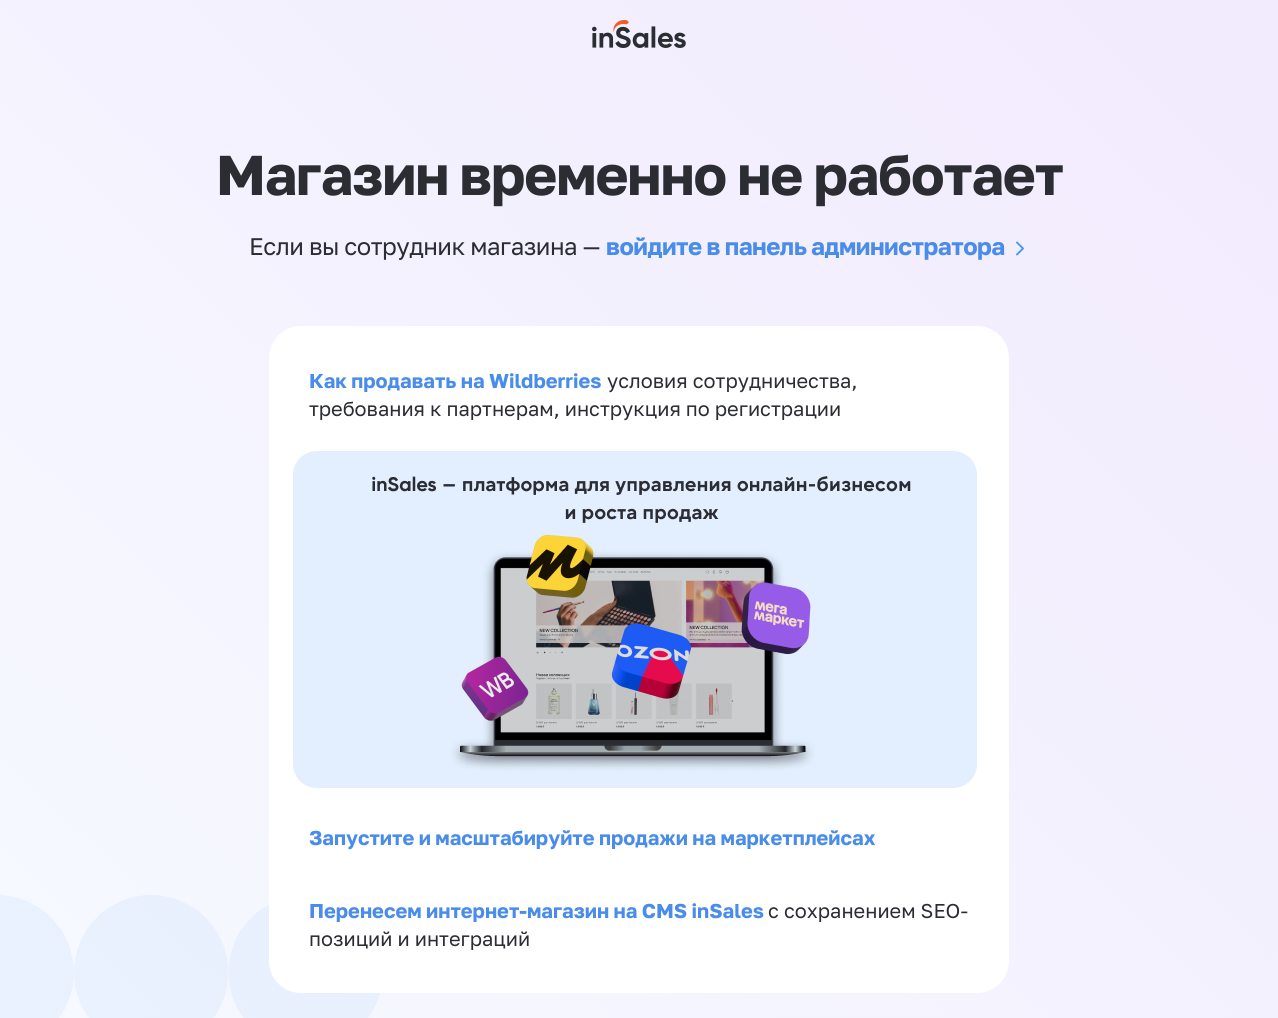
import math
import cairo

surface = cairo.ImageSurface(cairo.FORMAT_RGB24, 1278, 1018)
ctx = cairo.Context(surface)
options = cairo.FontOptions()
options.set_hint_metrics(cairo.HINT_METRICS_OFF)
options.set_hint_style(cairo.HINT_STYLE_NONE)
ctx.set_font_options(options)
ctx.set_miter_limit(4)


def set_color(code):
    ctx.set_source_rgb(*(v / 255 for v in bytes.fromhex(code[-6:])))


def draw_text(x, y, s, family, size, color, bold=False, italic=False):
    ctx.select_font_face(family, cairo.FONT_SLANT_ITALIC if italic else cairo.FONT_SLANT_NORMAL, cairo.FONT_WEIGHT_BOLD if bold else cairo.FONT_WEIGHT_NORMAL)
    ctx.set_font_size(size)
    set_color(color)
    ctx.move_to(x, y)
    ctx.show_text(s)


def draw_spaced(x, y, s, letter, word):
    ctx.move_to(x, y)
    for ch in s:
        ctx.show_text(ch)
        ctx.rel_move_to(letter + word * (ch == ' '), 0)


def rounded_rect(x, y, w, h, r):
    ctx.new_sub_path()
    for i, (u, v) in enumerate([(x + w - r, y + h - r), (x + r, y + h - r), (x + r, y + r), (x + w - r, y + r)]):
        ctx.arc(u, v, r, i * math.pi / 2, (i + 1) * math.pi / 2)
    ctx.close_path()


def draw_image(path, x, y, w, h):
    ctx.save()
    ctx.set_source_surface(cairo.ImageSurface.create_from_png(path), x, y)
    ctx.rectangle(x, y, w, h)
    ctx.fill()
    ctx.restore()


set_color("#ffffff")
ctx.paint()
draw_image("assets/img1.png", 0, 0, 1278, 1018)
draw_image("assets/img2.png", 592, 20, 94, 28)
ctx.select_font_face("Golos", cairo.FONT_SLANT_NORMAL, cairo.FONT_WEIGHT_BOLD)
ctx.set_font_size(56)
set_color("#2b2d33")
draw_spaced(216, 195, "Магазин временно не работает", -1.1, 0)
ctx.select_font_face("Golos Text")
ctx.set_font_size(24)
draw_spaced(249, 255, "Если вы сотрудник магазина —", -0.5, 0)
ctx.select_font_face("Golos", cairo.FONT_SLANT_NORMAL, cairo.FONT_WEIGHT_BOLD)
set_color("#498ce9")
draw_spaced(606, 255, "войдите в панель администратора", -0.5, 0)
ctx.new_path()
ctx.move_to(1017, 242.5)
ctx.line_to(1023, 248.5)
ctx.line_to(1017, 254.5)
set_color("#4597f7")
ctx.set_line_width(1.9)
ctx.set_line_cap(cairo.LINE_CAP_ROUND)
ctx.set_line_join(cairo.LINE_JOIN_ROUND)
ctx.stroke()
set_color("#ffffff")
rounded_rect(269, 326, 740, 667, 32)
ctx.fill()
draw_text(309, 388, "Как продавать на Wildberries", "Golos", 20, "#498ce9", bold=True)
draw_text(607, 388, "условия сотрудничества,", "Golos Text", 20, "#2b2d33")
draw_text(309, 416, "требования к партнерам, инструкция по регистрации", "Golos Text", 20, "#2b2d33")
draw_image("assets/img3.png", 293, 451, 684, 337)
draw_text(309, 845, "Запустите и масштабируйте продажи на маркетплейсах", "Golos", 20, "#498ce9", bold=True)
draw_text(309, 918, "Перенесем интернет-магазин на CMS inSales", "Golos", 20, "#498ce9", bold=True)
draw_text(768, 918, "с сохранением SEO-", "Golos Text", 20, "#2b2d33")
draw_text(309, 946, "позиций и интеграций", "Golos Text", 20, "#2b2d33")
surface.write_to_png("output.png")
